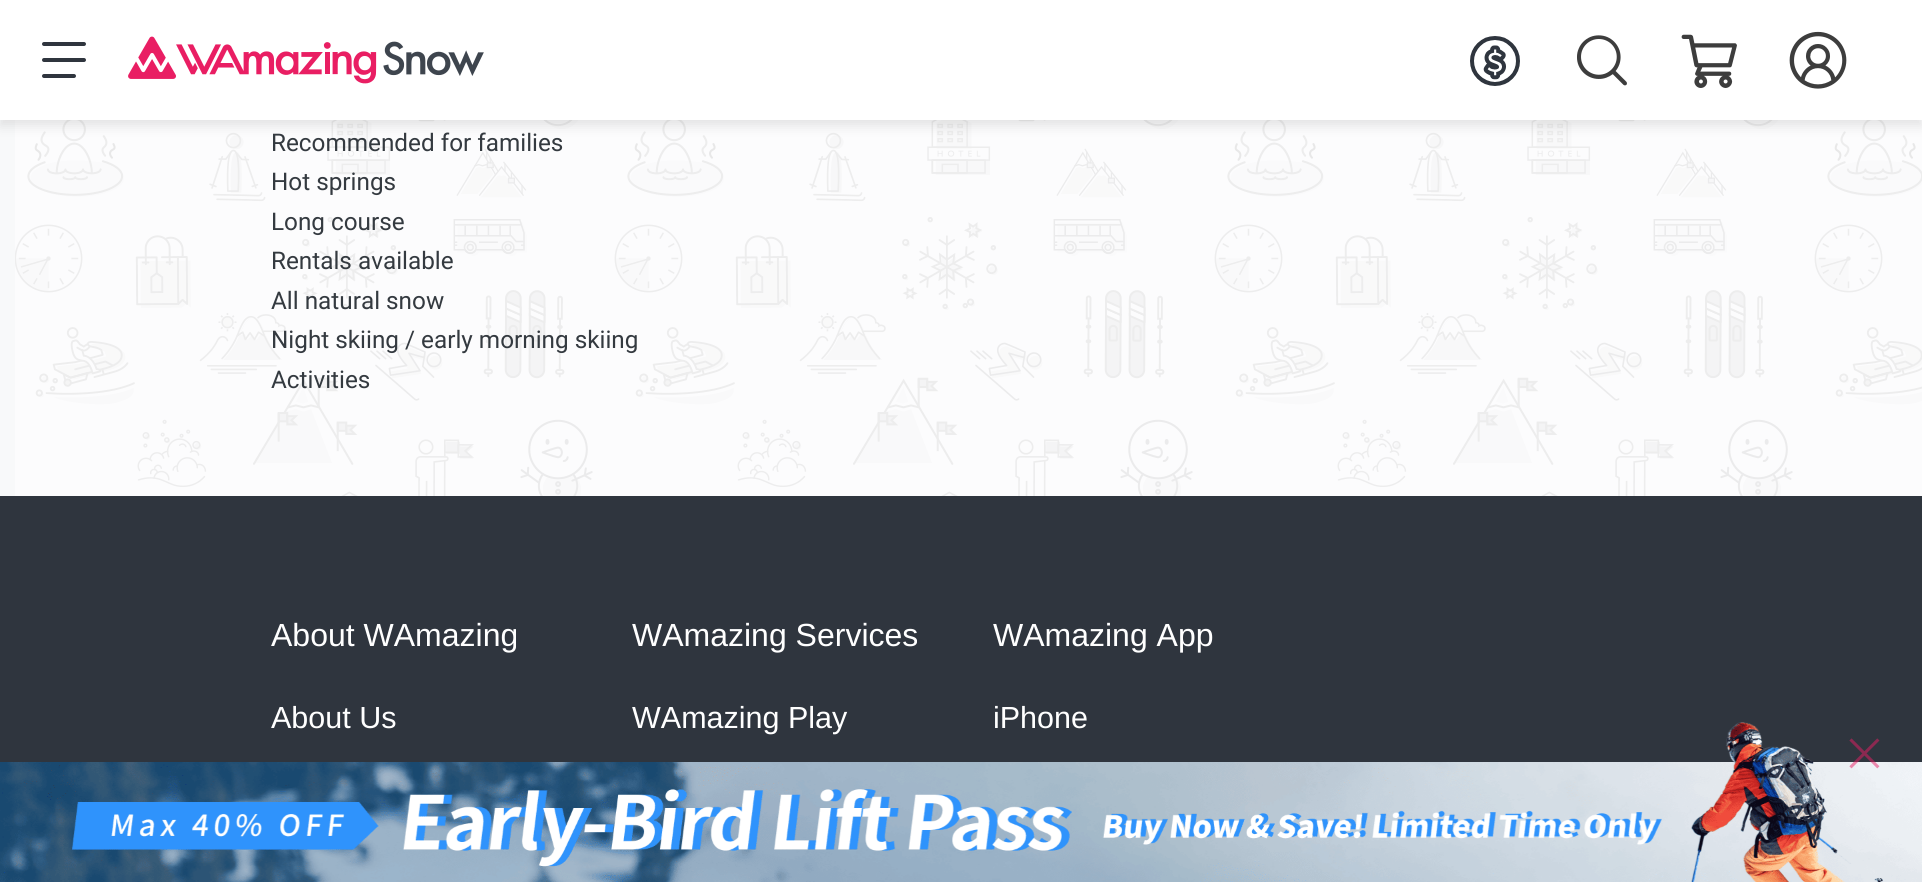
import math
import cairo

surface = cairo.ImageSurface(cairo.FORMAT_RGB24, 1922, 882)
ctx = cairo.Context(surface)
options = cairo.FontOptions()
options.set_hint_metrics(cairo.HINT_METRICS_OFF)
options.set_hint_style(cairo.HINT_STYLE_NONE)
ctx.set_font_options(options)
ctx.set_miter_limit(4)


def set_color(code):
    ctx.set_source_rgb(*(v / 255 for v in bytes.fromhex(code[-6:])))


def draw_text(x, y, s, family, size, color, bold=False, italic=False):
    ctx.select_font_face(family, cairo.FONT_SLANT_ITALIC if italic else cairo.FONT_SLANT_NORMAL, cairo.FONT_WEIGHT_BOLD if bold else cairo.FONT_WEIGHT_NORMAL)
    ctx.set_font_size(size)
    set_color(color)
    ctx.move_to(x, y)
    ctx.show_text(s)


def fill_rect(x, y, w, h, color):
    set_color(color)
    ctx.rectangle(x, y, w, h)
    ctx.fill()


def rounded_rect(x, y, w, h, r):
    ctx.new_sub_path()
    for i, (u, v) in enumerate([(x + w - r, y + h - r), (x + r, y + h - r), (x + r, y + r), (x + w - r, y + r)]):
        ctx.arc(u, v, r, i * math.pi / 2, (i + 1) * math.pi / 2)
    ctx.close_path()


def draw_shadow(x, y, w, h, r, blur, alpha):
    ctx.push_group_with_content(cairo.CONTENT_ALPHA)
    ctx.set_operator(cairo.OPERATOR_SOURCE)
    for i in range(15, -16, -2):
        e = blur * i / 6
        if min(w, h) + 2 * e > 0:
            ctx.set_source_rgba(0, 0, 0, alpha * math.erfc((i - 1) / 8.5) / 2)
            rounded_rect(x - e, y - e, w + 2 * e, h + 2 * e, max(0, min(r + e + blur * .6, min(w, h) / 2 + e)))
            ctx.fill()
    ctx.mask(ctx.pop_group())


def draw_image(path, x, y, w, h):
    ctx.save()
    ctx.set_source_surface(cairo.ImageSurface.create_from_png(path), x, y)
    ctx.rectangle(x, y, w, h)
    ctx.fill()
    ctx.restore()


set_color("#f8f9fa")
ctx.paint()
draw_image("assets/img6.png", 15, 120, 1907, 376)
set_color("#000000")
draw_shadow(0, 6, 1922, 120, 0, 6, 0.1)
fill_rect(0, 0, 1922, 120, "#ffffff")
set_color("#2f353e")
rounded_rect(42, 58, 44, 4, 2)
ctx.fill()
rounded_rect(42, 42, 44, 4, 2)
ctx.fill()
rounded_rect(42, 74, 34, 4, 2)
ctx.fill()
draw_image("assets/img1.png", 128, 36, 356, 48)
draw_image("assets/img2.png", 1470, 36, 50, 50)
draw_image("assets/img3.png", 1577, 35, 50, 51)
draw_image("assets/img4.png", 1681, 34, 56, 54)
draw_image("assets/img5.png", 1789, 31, 58, 58)
draw_text(271, 151, "Recommended for families", "Roboto", 24.3, "#343a40")
draw_text(271, 190, "Hot springs", "Roboto", 24.3, "#343a40")
draw_text(271, 230, "Long course", "Roboto", 24.3, "#343a40")
draw_text(271, 269, "Rentals available", "Roboto", 24.3, "#343a40")
draw_text(271, 309, "All natural snow", "Roboto", 24.3, "#343a40")
draw_text(271, 348, "Night skiing / early morning skiing", "Roboto", 24.3, "#343a40")
draw_text(271, 388, "Activities", "Roboto", 24.3, "#343a40")
fill_rect(0, 496, 1922, 266, "#2f353e")
draw_text(271, 646, "About WAmazing", "Liberation Sans", 32, "#ffffff")
draw_text(271, 728, "About Us", "Liberation Sans", 30.5, "#ffffff")
draw_text(632, 646, "WAmazing Services", "Liberation Sans", 32, "#ffffff")
draw_text(632, 728, "WAmazing Play", "Liberation Sans", 30.5, "#ffffff")
draw_text(993, 646, "WAmazing App", "Liberation Sans", 32, "#ffffff")
draw_text(993, 728, "iPhone", "Liberation Sans", 30.5, "#ffffff")
draw_image("assets/img7.png", 0, 722, 1922, 160)
draw_image("assets/img8.png", 1849, 738, 31, 31)
surface.write_to_png("output.png")
